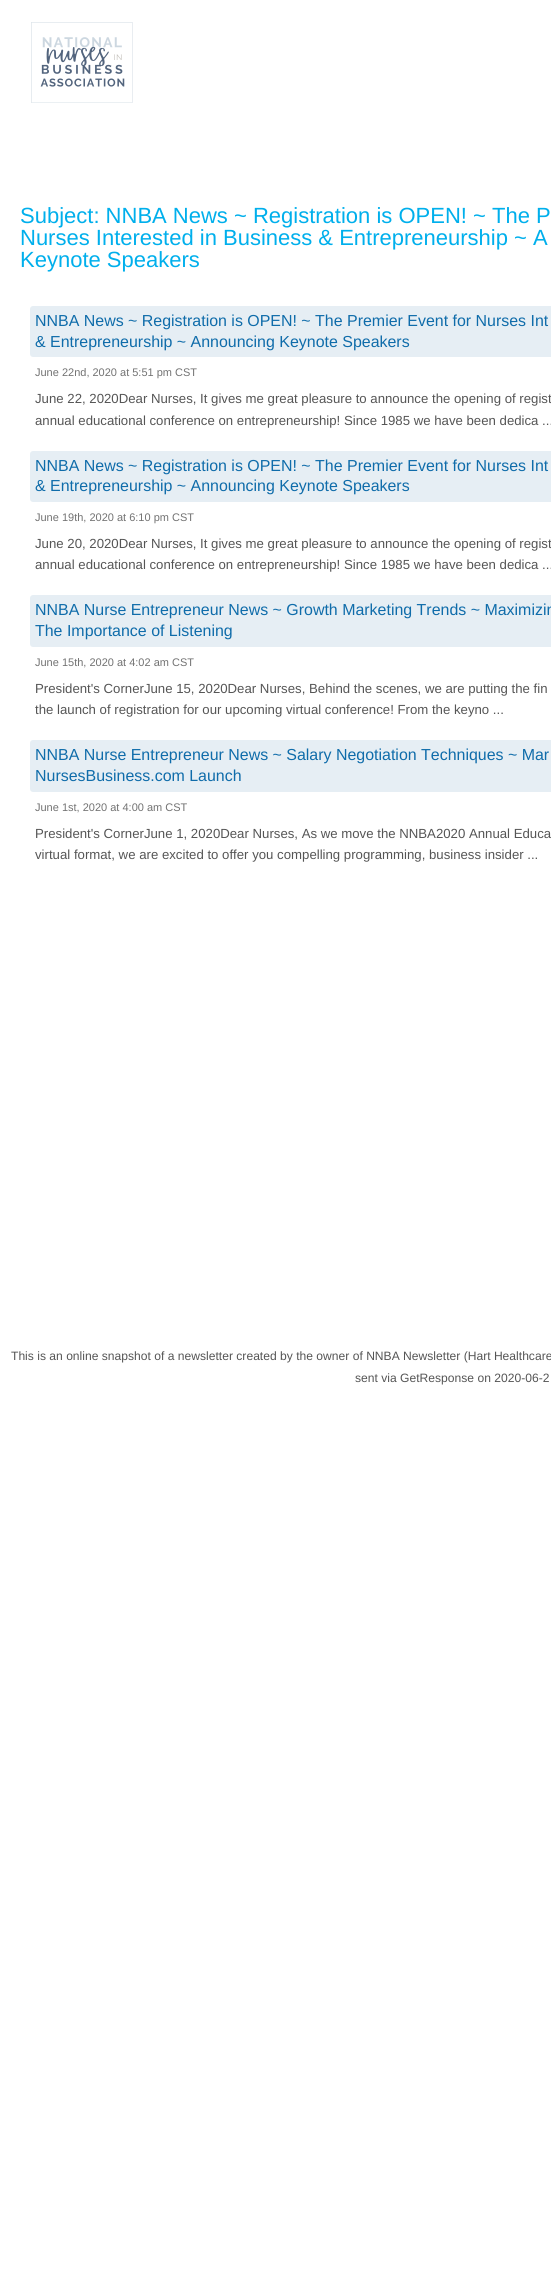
import math
import cairo

surface = cairo.ImageSurface(cairo.FORMAT_RGB24, 551, 2279)
ctx = cairo.Context(surface)
options = cairo.FontOptions()
options.set_hint_metrics(cairo.HINT_METRICS_OFF)
options.set_hint_style(cairo.HINT_STYLE_NONE)
ctx.set_font_options(options)
ctx.set_miter_limit(4)


def set_color(code):
    ctx.set_source_rgb(*(v / 255 for v in bytes.fromhex(code[-6:])))


def draw_text(x, y, s, family, size, color, bold=False, italic=False):
    ctx.select_font_face(family, cairo.FONT_SLANT_ITALIC if italic else cairo.FONT_SLANT_NORMAL, cairo.FONT_WEIGHT_BOLD if bold else cairo.FONT_WEIGHT_NORMAL)
    ctx.set_font_size(size)
    set_color(color)
    ctx.move_to(x, y)
    ctx.show_text(s)


def rounded_rect(x, y, w, h, r):
    ctx.new_sub_path()
    for i, (u, v) in enumerate([(x + w - r, y + h - r), (x + r, y + h - r), (x + r, y + r), (x + w - r, y + r)]):
        ctx.arc(u, v, r, i * math.pi / 2, (i + 1) * math.pi / 2)
    ctx.close_path()


def draw_image(path, x, y, w, h):
    ctx.save()
    ctx.set_source_surface(cairo.ImageSurface.create_from_png(path), x, y)
    ctx.rectangle(x, y, w, h)
    ctx.fill()
    ctx.restore()


set_color("#ffffff")
ctx.paint()
draw_image("assets/img1.png", 31, 22, 102, 81)
draw_text(20, 223, "Subject: NNBA News ~ Registration is OPEN! ~ The P", "Liberation Sans", 22, "#00afec")
draw_text(20, 245, "Nurses Interested in Business & Entrepreneurship ~ A", "Liberation Sans", 22, "#00afec")
draw_text(20, 267, "Keynote Speakers", "Liberation Sans", 22, "#00afec")
set_color("#e6eef4")
rounded_rect(30, 306, 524, 51, 3)
ctx.fill()
draw_text(35, 326, "NNBA News ~ Registration is OPEN! ~ The Premier Event for Nurses Int", "Liberation Sans", 15.95, "#0f6caa")
draw_text(35, 347, "& Entrepreneurship ~ Announcing Keynote Speakers", "Liberation Sans", 15.95, "#0f6caa")
draw_text(35, 376, "June 22nd, 2020 at 5:51 pm CST", "Liberation Sans", 11, "#727272")
draw_text(35, 403, "June 22, 2020Dear Nurses, It gives me great pleasure to announce the opening of regist", "Liberation Sans", 13.2, "#555555")
draw_text(35, 425, "annual educational conference on entrepreneurship! Since 1985 we have been dedica ...", "Liberation Sans", 13.2, "#555555")
set_color("#e6eef4")
rounded_rect(30, 451, 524, 51, 3)
ctx.fill()
draw_text(35, 471, "NNBA News ~ Registration is OPEN! ~ The Premier Event for Nurses Int", "Liberation Sans", 15.95, "#0f6caa")
draw_text(35, 491, "& Entrepreneurship ~ Announcing Keynote Speakers", "Liberation Sans", 15.95, "#0f6caa")
draw_text(35, 521, "June 19th, 2020 at 6:10 pm CST", "Liberation Sans", 11, "#727272")
draw_text(35, 548, "June 20, 2020Dear Nurses, It gives me great pleasure to announce the opening of regist", "Liberation Sans", 13.2, "#555555")
draw_text(35, 569, "annual educational conference on entrepreneurship! Since 1985 we have been dedica ...", "Liberation Sans", 13.2, "#555555")
set_color("#e6eef4")
rounded_rect(30, 595, 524, 52, 3)
ctx.fill()
draw_text(35, 615, "NNBA Nurse Entrepreneur News ~ Growth Marketing Trends ~ Maximizin", "Liberation Sans", 15.95, "#0f6caa")
draw_text(35, 636, "The Importance of Listening", "Liberation Sans", 15.95, "#0f6caa")
draw_text(35, 666, "June 15th, 2020 at 4:02 am CST", "Liberation Sans", 11, "#727272")
draw_text(35, 693, "President's CornerJune 15, 2020Dear Nurses, Behind the scenes, we are putting the fin", "Liberation Sans", 13.2, "#555555")
draw_text(35, 714, "the launch of registration for our upcoming virtual conference! From the keyno ...", "Liberation Sans", 13.2, "#555555")
set_color("#e6eef4")
rounded_rect(30, 740, 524, 52, 3)
ctx.fill()
draw_text(35, 760, "NNBA Nurse Entrepreneur News ~ Salary Negotiation Techniques ~ Mar", "Liberation Sans", 15.95, "#0f6caa")
draw_text(35, 781, "NursesBusiness.com Launch", "Liberation Sans", 15.95, "#0f6caa")
draw_text(35, 811, "June 1st, 2020 at 4:00 am CST", "Liberation Sans", 11, "#727272")
draw_text(35, 838, "President's CornerJune 1, 2020Dear Nurses, As we move the NNBA2020 Annual Educa", "Liberation Sans", 13.2, "#555555")
draw_text(35, 859, "virtual format, we are excited to offer you compelling programming, business insider ...", "Liberation Sans", 13.2, "#555555")
draw_text(11, 1360, "This is an online snapshot of a newsletter created by the owner of NNBA Newsletter (Hart Healthcare", "Liberation Sans", 12.1, "#555555")
draw_text(355, 1382, "sent via GetResponse on 2020-06-2", "Liberation Sans", 12.1, "#555555")
surface.write_to_png("output.png")
